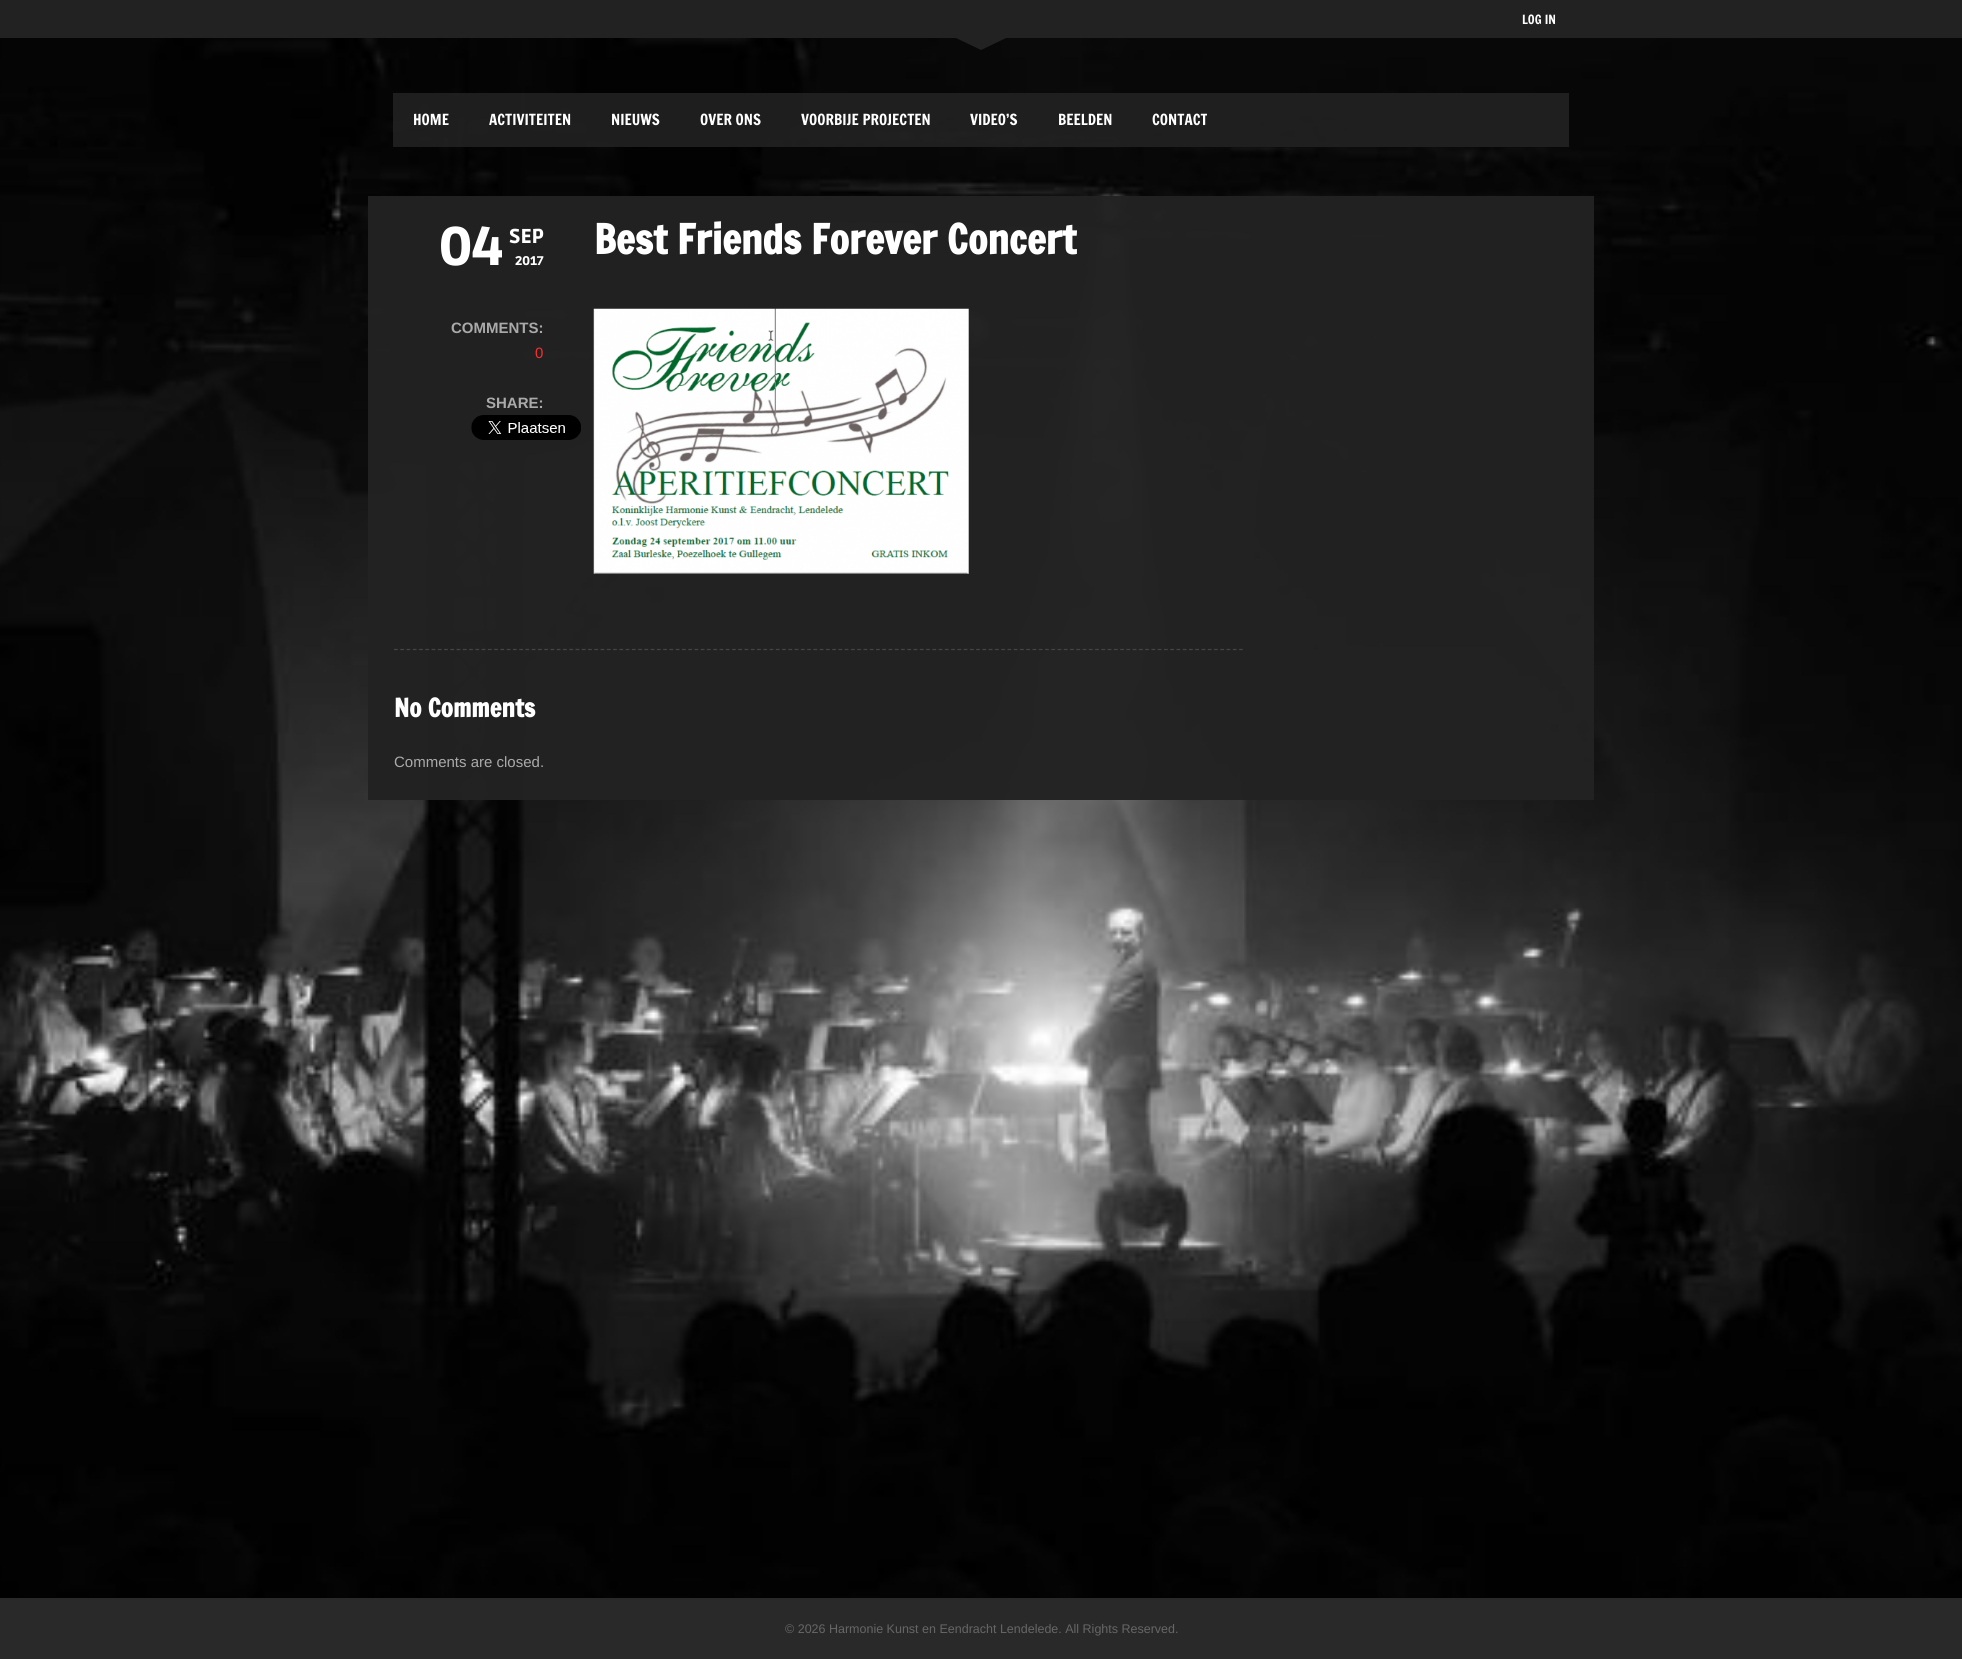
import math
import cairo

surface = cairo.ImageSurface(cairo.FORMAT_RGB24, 1962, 1659)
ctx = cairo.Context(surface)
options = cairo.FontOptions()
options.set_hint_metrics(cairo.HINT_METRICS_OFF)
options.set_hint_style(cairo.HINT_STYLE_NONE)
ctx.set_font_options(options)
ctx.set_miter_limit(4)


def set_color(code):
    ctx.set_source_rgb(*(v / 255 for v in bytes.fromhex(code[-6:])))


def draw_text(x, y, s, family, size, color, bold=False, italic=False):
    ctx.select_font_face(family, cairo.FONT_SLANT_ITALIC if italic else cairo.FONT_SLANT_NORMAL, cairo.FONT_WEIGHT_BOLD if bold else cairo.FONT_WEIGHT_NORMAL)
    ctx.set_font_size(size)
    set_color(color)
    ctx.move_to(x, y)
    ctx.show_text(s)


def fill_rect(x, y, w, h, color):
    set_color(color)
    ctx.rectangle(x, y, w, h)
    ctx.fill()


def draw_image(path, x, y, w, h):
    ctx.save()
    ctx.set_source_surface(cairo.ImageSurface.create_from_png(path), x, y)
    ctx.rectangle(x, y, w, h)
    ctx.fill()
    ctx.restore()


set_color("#ffffff")
ctx.paint()
fill_rect(0, 0, 1962, 38, "#222222")
draw_text(1522, 24, "LOG IN", "Francois One", 12.5, "#ffffff")
draw_image("assets/img3.png", 0, 38, 1962, 1560)
set_color("#222222")
ctx.new_path()
ctx.move_to(956, 38)
ctx.line_to(1006, 38)
ctx.line_to(981, 50)
ctx.close_path()
ctx.fill()
ctx.set_source_rgba(0.133, 0.133, 0.133, 0.9)
ctx.rectangle(393, 93, 1176, 54)
ctx.fill()
draw_text(413, 125, "HOME", "Francois One", 15, "#ffffff")
draw_text(489, 125, "ACTIVITEITEN", "Francois One", 15, "#ffffff")
draw_text(611, 125, "NIEUWS", "Francois One", 15, "#ffffff")
draw_text(700, 125, "OVER ONS", "Francois One", 15, "#ffffff")
draw_text(801, 125, "VOORBIJE PROJECTEN", "Francois One", 15, "#ffffff")
draw_text(970, 125, "VIDEO’S", "Francois One", 15, "#ffffff")
draw_text(1058, 125, "BEELDEN", "Francois One", 15, "#ffffff")
draw_text(1152, 125, "CONTACT", "Francois One", 15, "#ffffff")
ctx.set_source_rgba(0.133, 0.133, 0.133, 0.97)
ctx.rectangle(368, 196, 1226, 604)
ctx.fill()
draw_text(439, 265, "04", "Ruda Black", 54, "#ffffff")
draw_text(509, 243, "SEP", "Ruda Black", 20, "#ffffff")
draw_text(515, 265, "2017", "Ruda Black", 12.5, "#ffffff")
draw_text(451, 333, "COMMENTS:", "Liberation Sans", 15, "#aaaaaa", bold=True)
draw_text(535, 358, "0", "Liberation Sans", 15, "#fb2e2e")
draw_text(486, 408, "SHARE:", "Liberation Sans", 15, "#aaaaaa", bold=True)
draw_image("assets/img1.png", 471, 415, 110, 25)
draw_text(594, 254, "Best Friends Forever Concert", "Francois One", 40, "#ffffff", bold=True)
draw_image("assets/img2.png", 593, 308, 376, 266)
ctx.new_path()
ctx.move_to(394, 649.5)
ctx.line_to(1244, 649.5)
set_color("#444444")
ctx.set_line_width(1.2)
ctx.set_dash([3.75, 2.51])
ctx.stroke()
draw_text(394, 717, "No Comments", "Francois One", 25, "#ffffff", bold=True)
draw_text(394, 767, "Comments are closed.", "Liberation Sans", 15, "#aaaaaa")
fill_rect(0, 1598, 1962, 61, "#292929")
draw_text(785, 1633, "© 2026 Harmonie Kunst en Eendracht Lendelede. All Rights Reserved.", "Liberation Sans", 12.5, "#666666")
surface.write_to_png("output.png")
